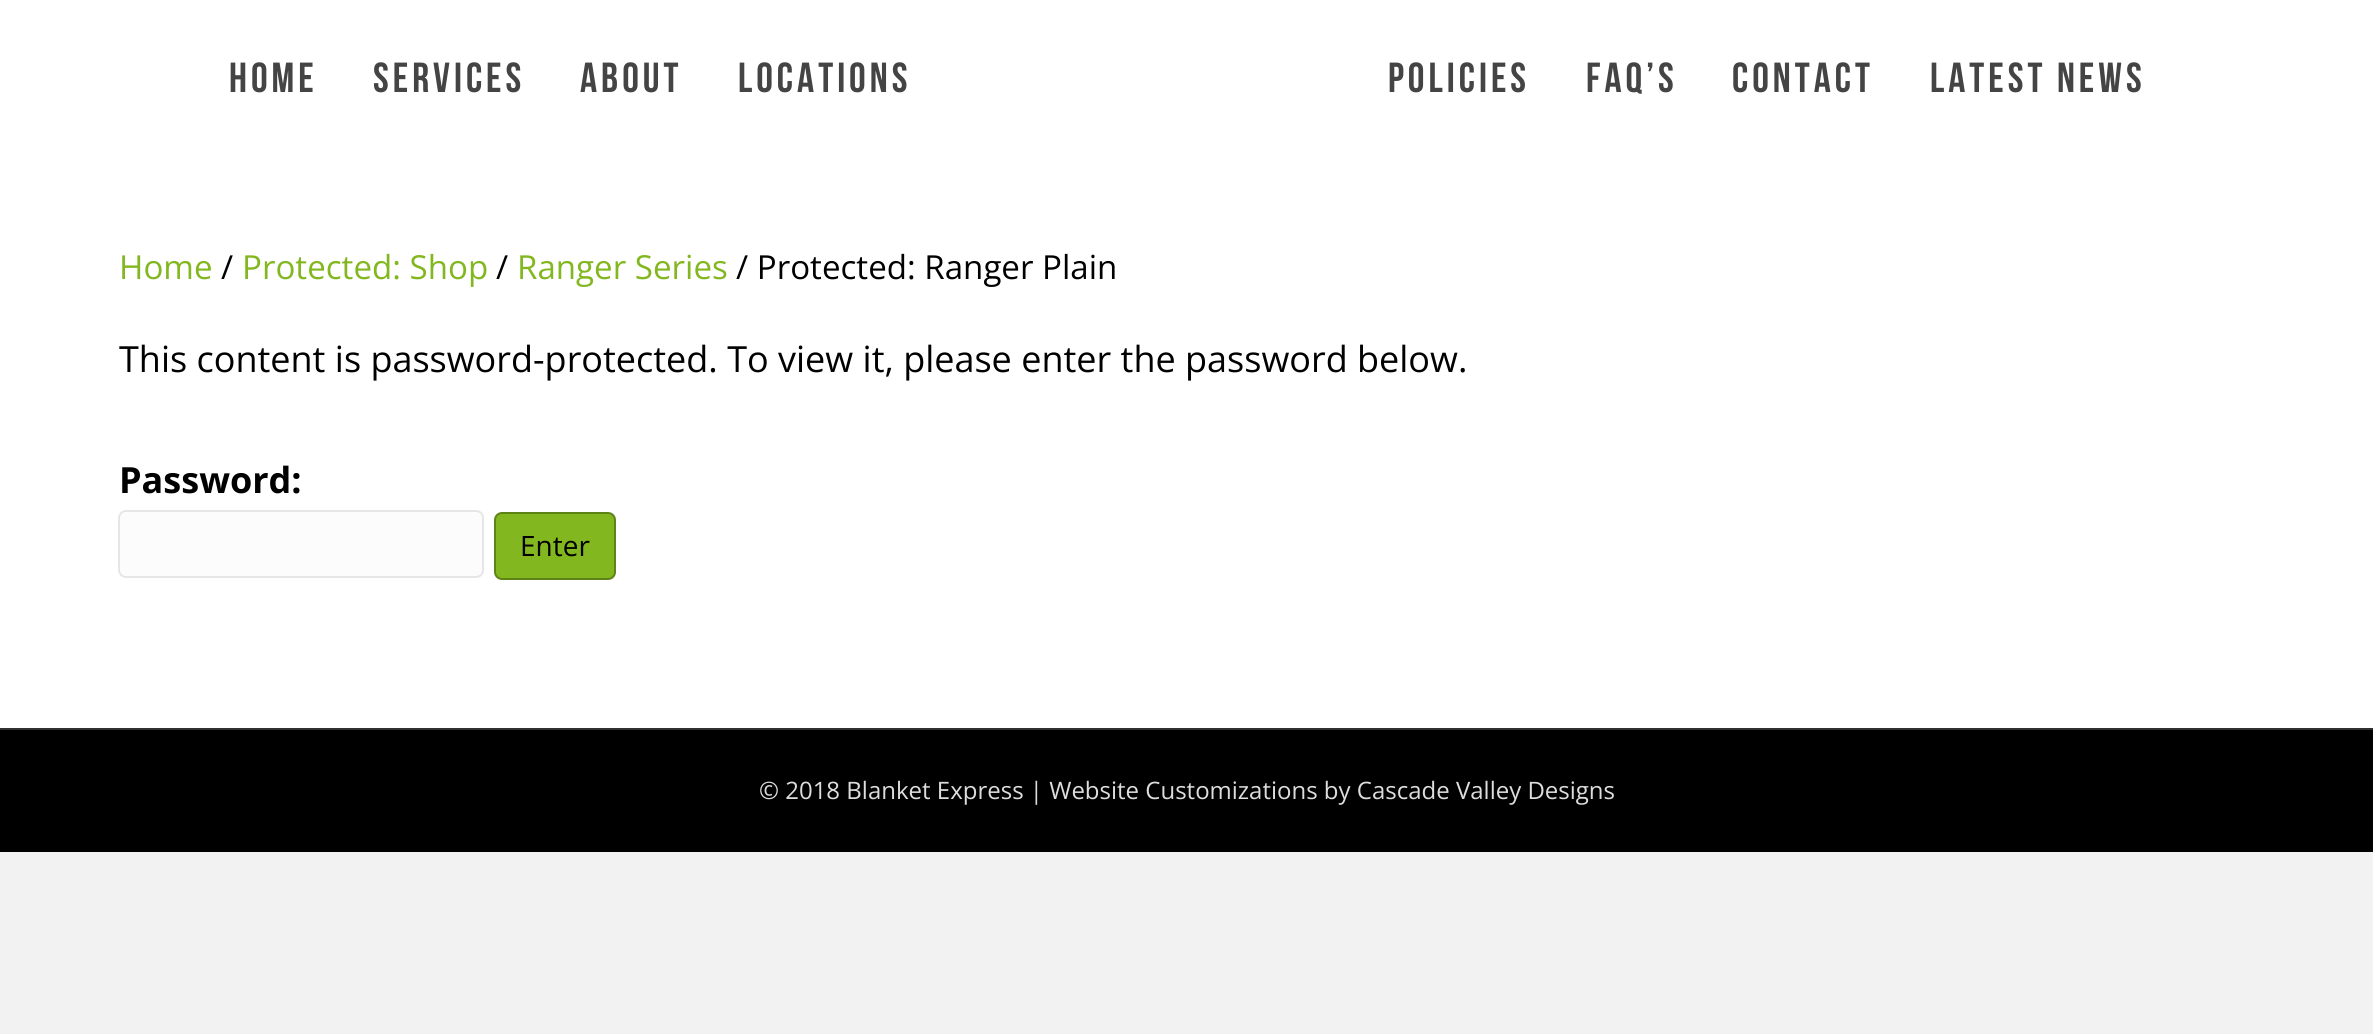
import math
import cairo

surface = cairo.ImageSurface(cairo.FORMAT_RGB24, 2373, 1034)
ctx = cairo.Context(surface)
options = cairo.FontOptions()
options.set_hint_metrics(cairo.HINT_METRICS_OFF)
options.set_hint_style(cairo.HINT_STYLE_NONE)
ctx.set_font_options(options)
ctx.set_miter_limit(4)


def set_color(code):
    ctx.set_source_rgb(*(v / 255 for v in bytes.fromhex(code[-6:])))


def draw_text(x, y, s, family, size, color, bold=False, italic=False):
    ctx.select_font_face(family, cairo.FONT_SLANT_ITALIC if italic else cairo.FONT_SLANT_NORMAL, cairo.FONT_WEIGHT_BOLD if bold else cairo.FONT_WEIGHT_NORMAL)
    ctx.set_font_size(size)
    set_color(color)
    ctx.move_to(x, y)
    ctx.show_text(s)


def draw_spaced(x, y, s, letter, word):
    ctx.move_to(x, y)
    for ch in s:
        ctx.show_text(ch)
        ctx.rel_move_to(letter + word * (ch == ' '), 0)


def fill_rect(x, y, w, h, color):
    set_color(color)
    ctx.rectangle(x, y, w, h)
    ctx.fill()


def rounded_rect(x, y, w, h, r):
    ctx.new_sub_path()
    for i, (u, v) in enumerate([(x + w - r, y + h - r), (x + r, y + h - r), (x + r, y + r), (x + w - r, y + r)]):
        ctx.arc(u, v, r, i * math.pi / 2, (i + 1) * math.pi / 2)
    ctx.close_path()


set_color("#f2f2f2")
ctx.paint()
fill_rect(0, 0, 2373, 728, "#ffffff")
ctx.select_font_face("Bebas Neue")
ctx.set_font_size(42)
set_color("#444444")
draw_spaced(229, 92, "HOME", 4, 0)
draw_spaced(373, 92, "SERVICES", 4, 0)
draw_spaced(580, 92, "ABOUT", 4, 0)
draw_spaced(738, 92, "LOCATIONS", 4, 0)
draw_spaced(1388, 92, "POLICIES", 4, 0)
draw_spaced(1586, 92, "FAQ’S", 4, 0)
draw_spaced(1732, 92, "CONTACT", 4, 0)
draw_spaced(1930, 92, "LATEST NEWS", 4, 0)
draw_text(119, 279, "Home", "Open Sans", 33.1, "#83b720")
draw_text(221, 279, "/", "Open Sans", 33.1, "#000000")
draw_text(242, 279, "Protected: Shop", "Open Sans", 33.1, "#83b720")
draw_text(496, 279, "/", "Open Sans", 33.1, "#000000")
draw_text(517, 279, "Ranger Series", "Open Sans", 33.1, "#83b720")
draw_text(736, 279, "/ Protected: Ranger Plain", "Open Sans", 33.1, "#000000")
draw_text(119, 372, "This content is password-protected. To view it, please enter the password below.", "Open Sans", 36, "#000000")
draw_text(119, 493, "Password:", "Open Sans", 36, "#000000", bold=True)
set_color("#fcfcfc")
rounded_rect(119, 511, 364, 66, 7)
ctx.fill_preserve()
set_color("#e6e6e6")
ctx.stroke()
set_color("#83b720")
rounded_rect(495, 513, 120, 66, 7)
ctx.fill_preserve()
set_color("#5e8317")
ctx.stroke()
draw_text(520, 556, "Enter", "Open Sans", 28, "#000000")
fill_rect(0, 730, 2373, 122, "#000000")
fill_rect(0, 728, 2373, 2, "#303030")
draw_text(759, 799, "© 2018 Blanket Express | Website Customizations by Cascade Valley Designs", "Open Sans", 24, "#dddddd")
surface.write_to_png("output.png")
